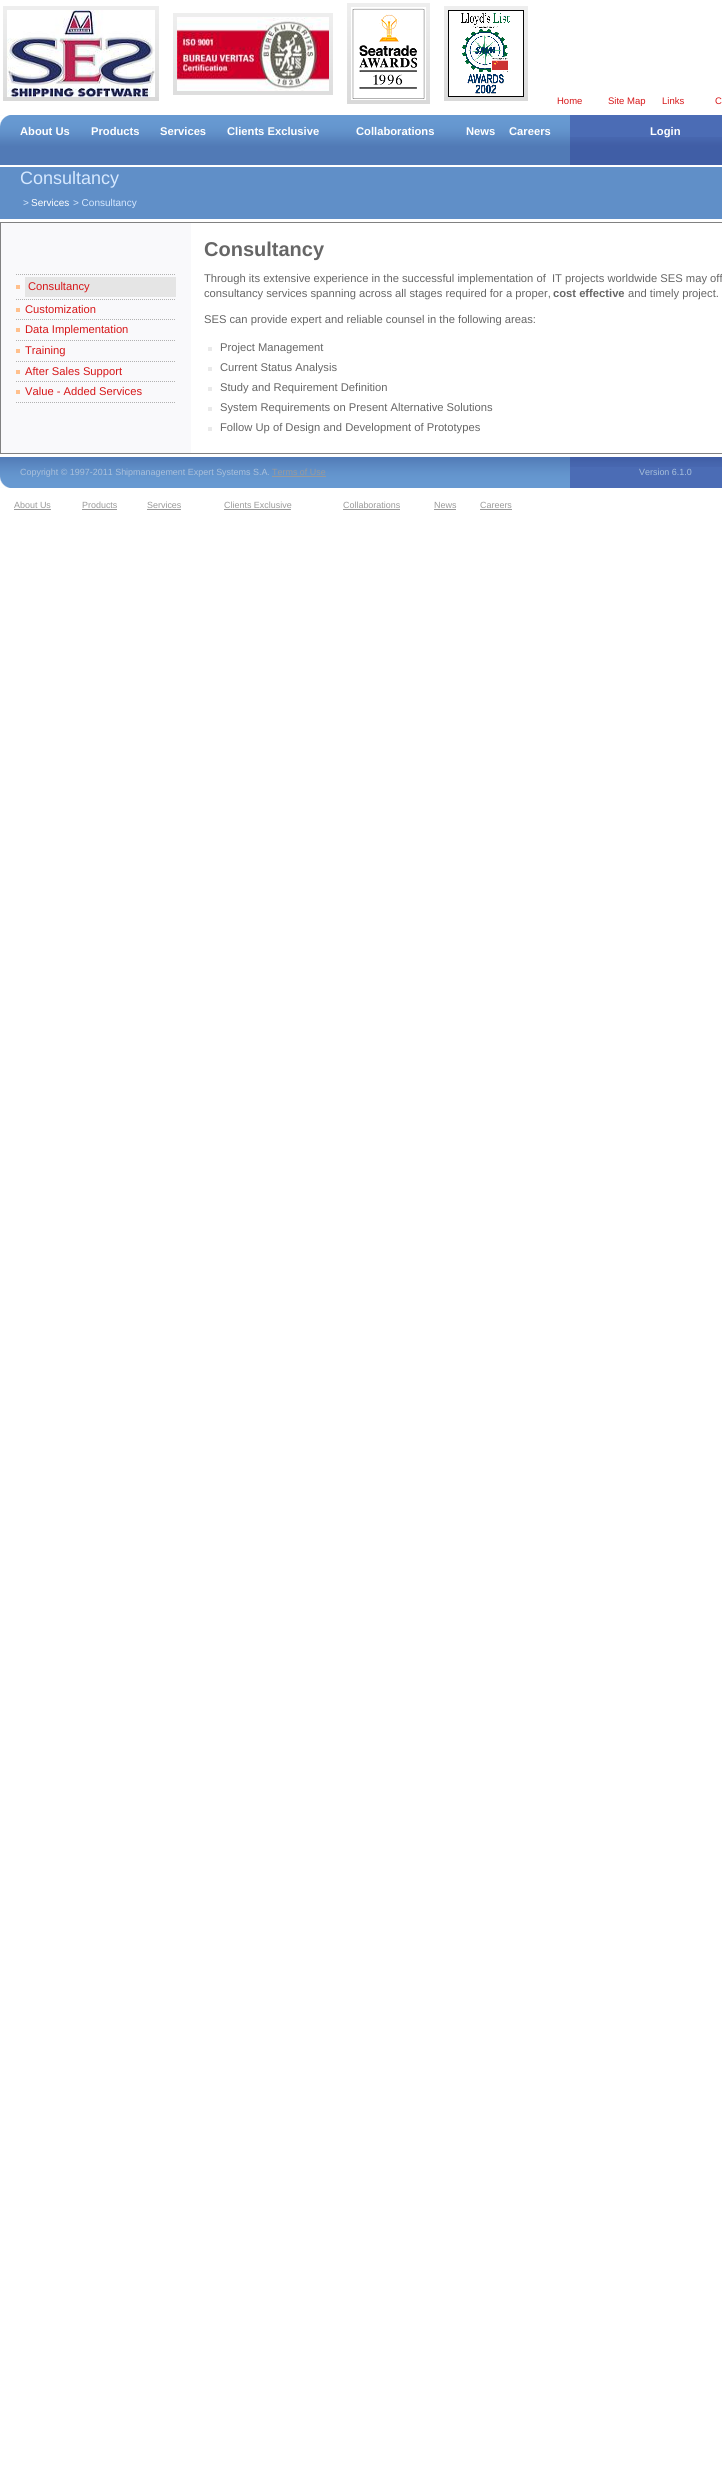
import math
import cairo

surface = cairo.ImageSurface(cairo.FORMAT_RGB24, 722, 2483)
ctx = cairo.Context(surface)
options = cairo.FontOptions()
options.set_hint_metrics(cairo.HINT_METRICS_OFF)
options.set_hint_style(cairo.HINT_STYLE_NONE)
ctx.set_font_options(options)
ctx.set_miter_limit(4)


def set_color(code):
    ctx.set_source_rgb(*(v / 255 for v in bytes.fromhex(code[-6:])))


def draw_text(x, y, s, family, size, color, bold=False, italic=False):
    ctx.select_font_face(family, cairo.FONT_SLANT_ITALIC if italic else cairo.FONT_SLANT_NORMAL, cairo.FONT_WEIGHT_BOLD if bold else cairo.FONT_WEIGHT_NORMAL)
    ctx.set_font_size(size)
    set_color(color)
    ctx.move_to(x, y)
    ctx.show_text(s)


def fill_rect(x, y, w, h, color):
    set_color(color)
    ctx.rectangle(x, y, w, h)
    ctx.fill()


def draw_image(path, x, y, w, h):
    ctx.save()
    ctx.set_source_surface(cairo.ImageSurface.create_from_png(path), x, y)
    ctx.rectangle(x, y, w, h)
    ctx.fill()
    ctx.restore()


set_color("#ffffff")
ctx.paint()
fill_rect(3, 97, 156, 4, "#d9d9d9")
draw_image("assets/img1.png", 3, 6, 156, 91)
draw_image("assets/img2.png", 173, 13, 160, 82)
fill_rect(347, 100, 83, 4, "#d9d9d9")
draw_image("assets/img3.png", 347, 3, 83, 97)
fill_rect(444, 97, 84, 4, "#d9d9d9")
draw_image("assets/img4.png", 444, 6, 84, 91)
draw_text(557, 104, "Home", "Liberation Sans", 9.5, "#d61719")
draw_text(608, 104, "Site Map", "Liberation Sans", 9.5, "#d61719")
draw_text(662, 104, "Links", "Liberation Sans", 9.5, "#d61719")
draw_text(715, 104, "C", "Liberation Sans", 9.5, "#d61719")
draw_image("assets/img5.png", 0, 115, 570, 50)
draw_text(20, 135, "About Us", "Liberation Sans", 11.2, "#ffffff", bold=True)
draw_text(91, 135, "Products", "Liberation Sans", 11.2, "#ffffff", bold=True)
draw_text(160, 135, "Services", "Liberation Sans", 11.2, "#ffffff", bold=True)
draw_text(227, 135, "Clients Exclusive", "Liberation Sans", 11.2, "#ffffff", bold=True)
draw_text(356, 135, "Collaborations", "Liberation Sans", 11.2, "#ffffff", bold=True)
draw_text(466, 135, "News", "Liberation Sans", 11.2, "#ffffff", bold=True)
draw_text(509, 135, "Careers", "Liberation Sans", 11.2, "#ffffff", bold=True)
fill_rect(570, 115, 152, 22, "#4b6cb5")
draw_image("assets/img6.png", 570, 137, 152, 28)
draw_text(650, 135, "Login", "Liberation Sans", 11.2, "#ffffff", bold=True)
fill_rect(0, 167, 722, 52, "#608fc8")
draw_text(20, 184, "Consultancy", "Liberation Sans", 18, "#d5e8ff")
draw_text(23, 206, ">", "Liberation Sans", 10, "#d5e8ff")
draw_text(31, 206, "Services", "Liberation Sans", 10, "#ffffff")
draw_text(73, 206, "> Consultancy", "Liberation Sans", 10, "#d5e8ff")
fill_rect(1, 223, 190, 230, "#f9f9fb")
ctx.rectangle(0.5, 222.5, 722, 231)
set_color("#818181")
ctx.set_line_width(1)
ctx.stroke()
ctx.new_path()
ctx.move_to(16, 402.5)
ctx.line_to(176, 402.5)
set_color("#b2b2b2")
ctx.set_dash([1, 1])
ctx.stroke()
ctx.new_path()
ctx.move_to(16, 274.5)
ctx.line_to(176, 274.5)
ctx.stroke()
fill_rect(16, 285, 4, 4, "#ffc08d")
fill_rect(25, 277, 151, 20, "#e5e5e5")
draw_text(28, 290, "Consultancy", "Liberation Sans", 11.2, "#d61719")
ctx.new_path()
ctx.move_to(16, 299.5)
ctx.line_to(176, 299.5)
set_color("#b2b2b2")
ctx.stroke()
fill_rect(16, 308, 4, 4, "#ffc08d")
draw_text(25, 313, "Customization", "Liberation Sans", 11.2, "#d61719")
ctx.new_path()
ctx.move_to(16, 319.5)
ctx.line_to(176, 319.5)
set_color("#b2b2b2")
ctx.stroke()
fill_rect(16, 328, 4, 4, "#ffc08d")
draw_text(25, 333, "Data Implementation", "Liberation Sans", 11.2, "#d61719")
ctx.new_path()
ctx.move_to(16, 340.5)
ctx.line_to(176, 340.5)
set_color("#b2b2b2")
ctx.stroke()
fill_rect(16, 349, 4, 4, "#ffc08d")
draw_text(25, 354, "Training", "Liberation Sans", 11.2, "#d61719")
ctx.new_path()
ctx.move_to(16, 361.5)
ctx.line_to(176, 361.5)
set_color("#b2b2b2")
ctx.stroke()
fill_rect(16, 370, 4, 4, "#ffc08d")
draw_text(25, 375, "After Sales Support", "Liberation Sans", 11.2, "#d61719")
ctx.new_path()
ctx.move_to(16, 381.5)
ctx.line_to(176, 381.5)
set_color("#b2b2b2")
ctx.stroke()
fill_rect(16, 390, 4, 4, "#ffc08d")
draw_text(25, 395, "Value - Added Services", "Liberation Sans", 11.2, "#d61719")
draw_text(204, 256, "Consultancy", "Liberation Sans", 20, "#666666", bold=True)
draw_text(204, 282, "Through its extensive experience in the successful implementation of  IT projects worldwide SES may off", "Liberation Sans", 11.2, "#666666")
draw_text(204, 297, "consultancy services spanning across all stages required for a proper,", "Liberation Sans", 11.2, "#666666")
draw_text(553, 297, "cost effective", "Liberation Sans", 11.2, "#666666", bold=True)
draw_text(628, 297, "and timely project.", "Liberation Sans", 11.2, "#666666")
draw_text(204, 323, "SES can provide expert and reliable counsel in the following areas:", "Liberation Sans", 11.2, "#666666")
fill_rect(208, 347, 4, 4, "#eaeaea")
draw_text(220, 351, "Project Management", "Liberation Sans", 11.2, "#666666")
fill_rect(208, 367, 4, 4, "#eaeaea")
draw_text(220, 371, "Current Status Analysis", "Liberation Sans", 11.2, "#666666")
fill_rect(208, 387, 4, 4, "#eaeaea")
draw_text(220, 391, "Study and Requirement Definition", "Liberation Sans", 11.2, "#666666")
fill_rect(208, 407, 4, 4, "#eaeaea")
draw_text(220, 411, "System Requirements on Present Alternative Solutions", "Liberation Sans", 11.2, "#666666")
fill_rect(208, 427, 4, 4, "#eaeaea")
draw_text(220, 431, "Follow Up of Design and Development of Prototypes", "Liberation Sans", 11.2, "#666666")
draw_image("assets/img7.png", 0, 457, 570, 31)
draw_text(20, 475, "Copyright © 1997-2011 Shipmanagement Expert Systems S.A.", "Liberation Sans", 8.95, "#a9c0db")
draw_text(272, 475, "Terms of Use", "Liberation Sans", 8.95, "#999999")
fill_rect(272, 476, 54, 1, "#999999")
fill_rect(570, 467, 152, 21, "#4b6cb5")
draw_image("assets/img8.png", 570, 457, 152, 10)
draw_text(639, 475, "Version 6.1.0", "Liberation Sans", 8.95, "#a9c0db")
draw_text(14, 508, "About Us", "Liberation Sans", 8.95, "#999999")
fill_rect(14, 509, 37, 1, "#999999")
draw_text(82, 508, "Products", "Liberation Sans", 8.95, "#999999")
fill_rect(82, 509, 35, 1, "#999999")
draw_text(147, 508, "Services", "Liberation Sans", 8.95, "#999999")
fill_rect(147, 509, 34, 1, "#999999")
draw_text(224, 508, "Clients Exclusive", "Liberation Sans", 8.95, "#999999")
fill_rect(224, 509, 67, 1, "#999999")
draw_text(343, 508, "Collaborations", "Liberation Sans", 8.95, "#999999")
fill_rect(343, 509, 57, 1, "#999999")
draw_text(434, 508, "News", "Liberation Sans", 8.95, "#999999")
fill_rect(434, 509, 22, 1, "#999999")
draw_text(480, 508, "Careers", "Liberation Sans", 8.95, "#999999")
fill_rect(480, 509, 32, 1, "#999999")
surface.write_to_png("output.png")
